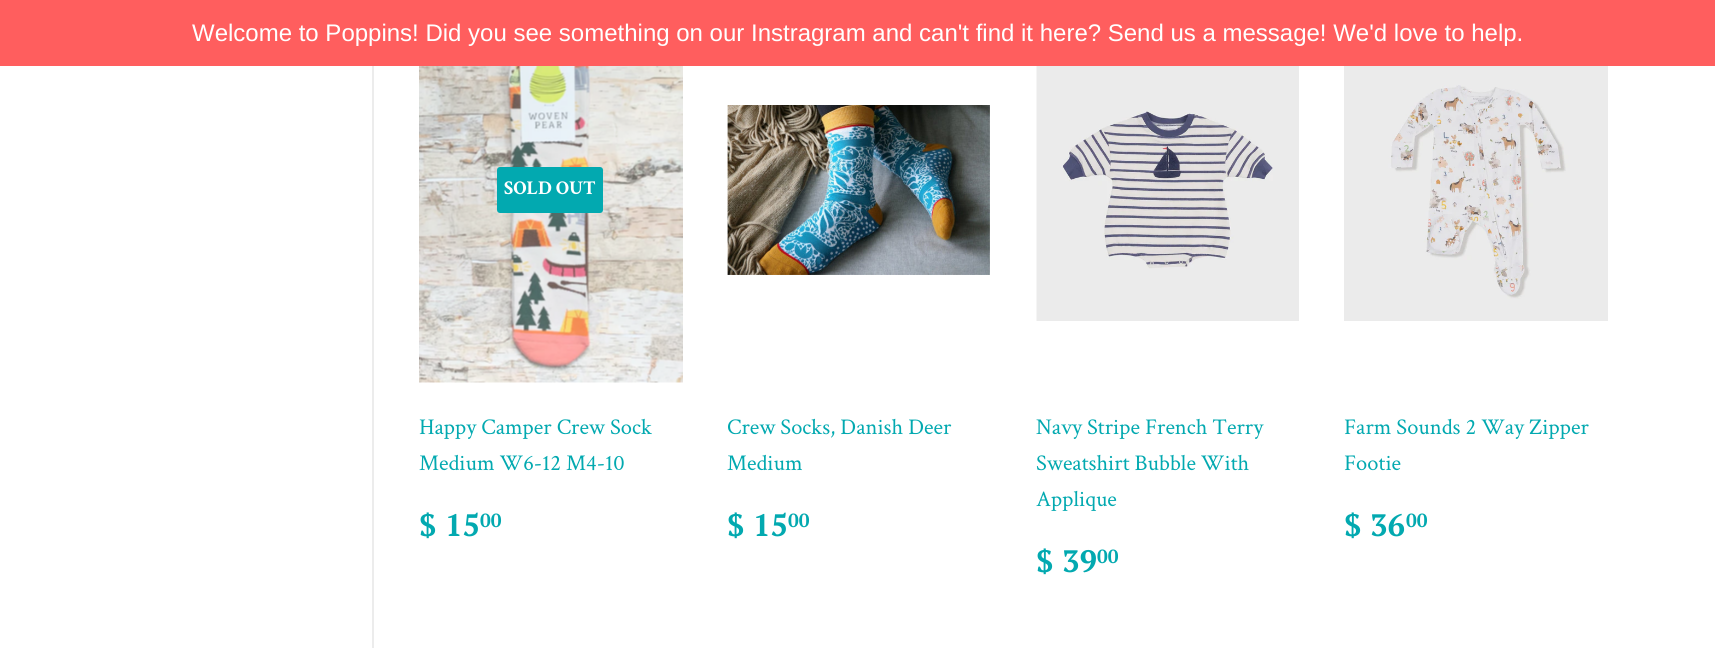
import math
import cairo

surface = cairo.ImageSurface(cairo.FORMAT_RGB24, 1715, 648)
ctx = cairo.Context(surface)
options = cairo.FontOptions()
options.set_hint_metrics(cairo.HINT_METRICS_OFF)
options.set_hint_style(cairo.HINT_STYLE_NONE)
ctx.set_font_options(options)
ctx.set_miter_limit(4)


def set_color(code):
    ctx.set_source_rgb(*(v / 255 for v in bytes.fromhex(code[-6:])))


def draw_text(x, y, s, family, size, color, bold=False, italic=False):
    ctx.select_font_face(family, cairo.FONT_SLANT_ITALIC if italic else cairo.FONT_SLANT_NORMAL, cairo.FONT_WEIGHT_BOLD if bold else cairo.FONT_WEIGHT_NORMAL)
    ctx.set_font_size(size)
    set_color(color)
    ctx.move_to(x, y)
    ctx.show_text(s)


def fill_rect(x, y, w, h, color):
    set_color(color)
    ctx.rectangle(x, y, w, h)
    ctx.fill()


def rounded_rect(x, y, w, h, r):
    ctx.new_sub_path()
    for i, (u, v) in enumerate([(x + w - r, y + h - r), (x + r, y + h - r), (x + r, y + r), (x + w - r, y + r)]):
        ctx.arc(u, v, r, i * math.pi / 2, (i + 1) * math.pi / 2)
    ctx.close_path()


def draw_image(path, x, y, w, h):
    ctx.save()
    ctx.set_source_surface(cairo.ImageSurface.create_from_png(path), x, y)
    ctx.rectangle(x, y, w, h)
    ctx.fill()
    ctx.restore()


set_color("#ffffff")
ctx.paint()
fill_rect(0, 0, 1715, 66, "#ff5e5e")
draw_text(192, 41, "Welcome to Poppins! Did you see something on our Instragram and can't find it here? Send us a message! We'd love to help.", "Liberation Sans", 24, "#ffffff")
fill_rect(372, 66, 2, 582, "#ececec")
draw_image("assets/img1.png", 419, 66, 264, 317)
set_color("#02a9b0")
rounded_rect(497, 167, 106, 46, 3)
ctx.fill()
draw_text(504, 194, "SOLD OUT", "Crimson Text", 19.5, "#ffffff", bold=True)
draw_text(419, 434, "Happy Camper Crew Sock", "Crimson Text", 22.5, "#02a9b0")
draw_text(419, 470, "Medium W6-12 M4-10", "Crimson Text", 22.5, "#02a9b0")
draw_text(419, 536, "$ 15", "PT Serif", 31, "#02a9b0", bold=True)
draw_text(480, 527, "00", "PT Serif", 19, "#02a9b0", bold=True)
draw_image("assets/img2.png", 727, 105, 263, 170)
draw_text(727, 434, "Crew Socks, Danish Deer", "Crimson Text", 22.5, "#02a9b0")
draw_text(727, 470, "Medium", "Crimson Text", 22.5, "#02a9b0")
draw_text(727, 536, "$ 15", "PT Serif", 31, "#02a9b0", bold=True)
draw_text(788, 527, "00", "PT Serif", 19, "#02a9b0", bold=True)
draw_image("assets/img3.png", 1036, 66, 263, 255)
draw_text(1036, 434, "Navy Stripe French Terry", "Crimson Text", 22.5, "#02a9b0")
draw_text(1036, 470, "Sweatshirt Bubble With", "Crimson Text", 22.5, "#02a9b0")
draw_text(1036, 506, "Applique", "Crimson Text", 22.5, "#02a9b0")
draw_text(1036, 572, "$ 39", "PT Serif", 31, "#02a9b0", bold=True)
draw_text(1097, 563, "00", "PT Serif", 19, "#02a9b0", bold=True)
draw_image("assets/img4.png", 1344, 66, 264, 255)
draw_text(1344, 434, "Farm Sounds 2 Way Zipper", "Crimson Text", 22.5, "#02a9b0")
draw_text(1344, 470, "Footie", "Crimson Text", 22.5, "#02a9b0")
draw_text(1344, 536, "$ 36", "PT Serif", 31, "#02a9b0", bold=True)
draw_text(1406, 527, "00", "PT Serif", 19, "#02a9b0", bold=True)
surface.write_to_png("output.png")
